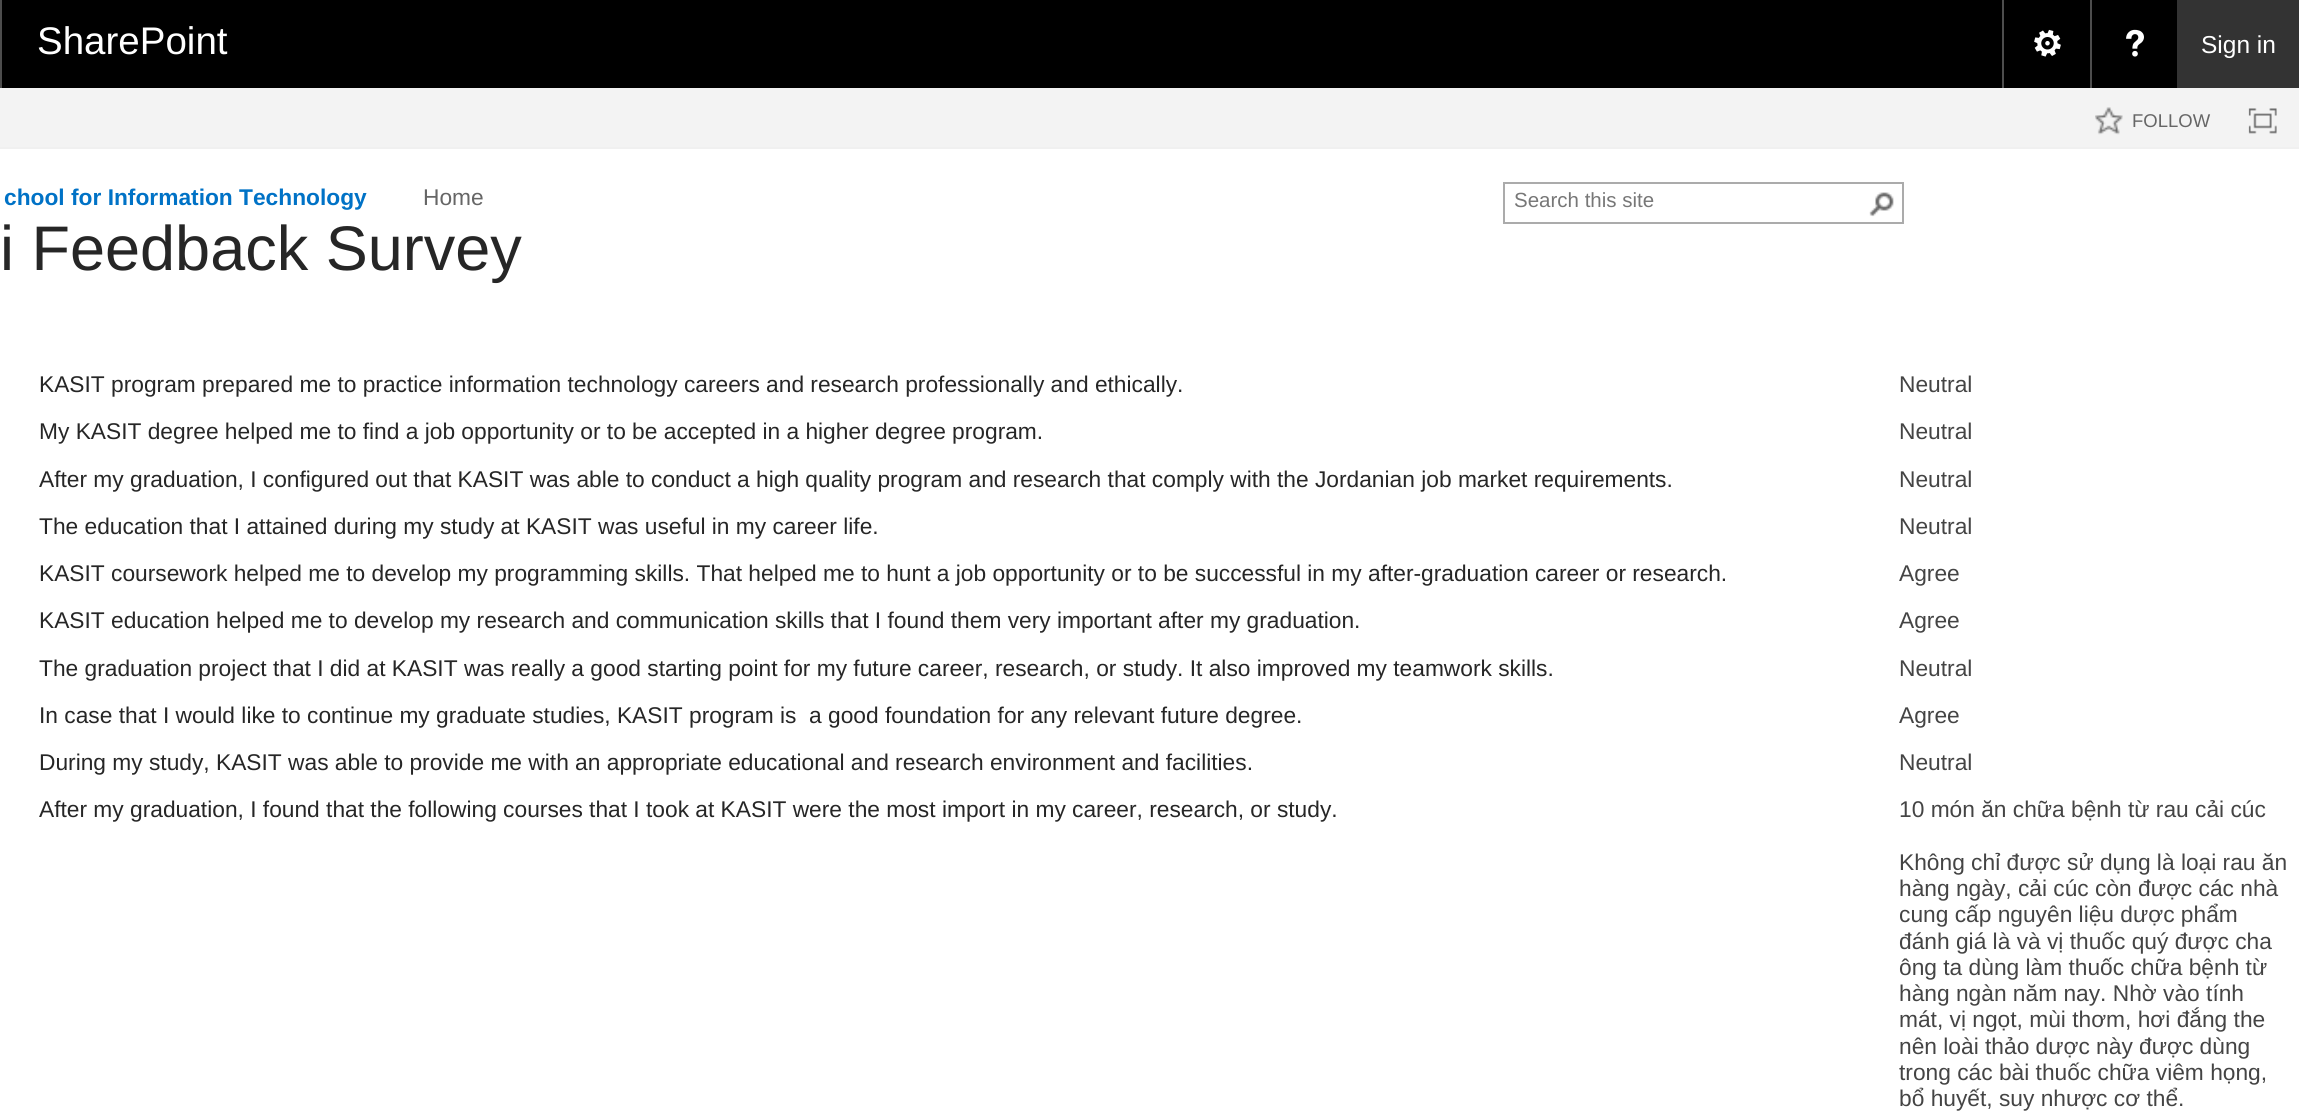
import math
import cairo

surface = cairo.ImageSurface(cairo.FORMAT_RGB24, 2299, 1117)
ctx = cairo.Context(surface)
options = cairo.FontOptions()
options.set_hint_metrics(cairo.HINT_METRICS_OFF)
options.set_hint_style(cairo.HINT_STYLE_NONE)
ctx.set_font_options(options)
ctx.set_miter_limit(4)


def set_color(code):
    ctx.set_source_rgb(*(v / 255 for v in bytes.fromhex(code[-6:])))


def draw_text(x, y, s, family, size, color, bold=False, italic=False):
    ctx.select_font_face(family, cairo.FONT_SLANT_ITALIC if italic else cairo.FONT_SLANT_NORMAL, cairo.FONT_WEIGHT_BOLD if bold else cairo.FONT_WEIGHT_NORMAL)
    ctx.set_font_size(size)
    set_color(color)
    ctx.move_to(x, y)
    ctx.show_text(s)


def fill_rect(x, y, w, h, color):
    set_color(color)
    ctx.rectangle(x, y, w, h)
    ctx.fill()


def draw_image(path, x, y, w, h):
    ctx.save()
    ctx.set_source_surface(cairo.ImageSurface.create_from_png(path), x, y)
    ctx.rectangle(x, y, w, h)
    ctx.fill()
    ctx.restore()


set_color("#ffffff")
ctx.paint()
fill_rect(2, 0, 2175, 88, "#000000")
fill_rect(0, 0, 2, 88, "#4d4d4d")
draw_text(37, 54, "SharePoint", "Liberation Sans", 38.5, "#ffffff")
fill_rect(2002, 0, 2, 88, "#4d4d4d")
draw_image("assets/img1.png", 2034, 29, 27, 28)
fill_rect(2090, 0, 2, 88, "#4d4d4d")
draw_image("assets/img2.png", 2126, 29, 18, 28)
fill_rect(2177, 0, 122, 88, "#333333")
draw_text(2201, 53, "Sign in", "Liberation Sans", 24.5, "#ffffff")
fill_rect(0, 88, 2299, 59, "#f3f3f3")
fill_rect(0, 147, 2299, 2, "#f0f0f0")
draw_image("assets/img3.png", 2095, 107, 28, 28)
draw_text(2132, 127, "FOLLOW", "Liberation Sans", 18.5, "#666666")
draw_image("assets/img4.png", 2248, 108, 29, 26)
draw_text(4, 205, "chool for Information Technology", "Liberation Sans", 22.75, "#0072c6", bold=True)
draw_text(423, 205, "Home", "Liberation Sans", 22.75, "#666666")
draw_text(0, 270, "i Feedback Survey", "Liberation Sans", 63, "#262626")
ctx.rectangle(1504, 183, 399, 40)
set_color("#ababab")
ctx.stroke()
draw_text(1514, 207, "Search this site", "Liberation Sans", 20.5, "#777777")
draw_image("assets/img5.png", 1869, 192, 25, 25)
draw_text(39, 392, "KASIT program prepared me to practice information technology careers and research professionally and ethically.", "Liberation Sans", 22.75, "#262626")
draw_text(1899, 392, "Neutral", "Liberation Sans", 22.75, "#444444")
draw_text(39, 439, "My KASIT degree helped me to find a job opportunity or to be accepted in a higher degree program.", "Liberation Sans", 22.75, "#262626")
draw_text(1899, 439, "Neutral", "Liberation Sans", 22.75, "#444444")
draw_text(39, 487, "After my graduation, I configured out that KASIT was able to conduct a high quality program and research that comply with the Jordanian job market requirements.", "Liberation Sans", 22.75, "#262626")
draw_text(1899, 487, "Neutral", "Liberation Sans", 22.75, "#444444")
draw_text(39, 534, "The education that I attained during my study at KASIT was useful in my career life.", "Liberation Sans", 22.75, "#262626")
draw_text(1899, 534, "Neutral", "Liberation Sans", 22.75, "#444444")
draw_text(39, 581, "KASIT coursework helped me to develop my programming skills. That helped me to hunt a job opportunity or to be successful in my after-graduation career or research.", "Liberation Sans", 22.75, "#262626")
draw_text(1899, 581, "Agree", "Liberation Sans", 22.75, "#444444")
draw_text(39, 628, "KASIT education helped me to develop my research and communication skills that I found them very important after my graduation.", "Liberation Sans", 22.75, "#262626")
draw_text(1899, 628, "Agree", "Liberation Sans", 22.75, "#444444")
draw_text(39, 676, "The graduation project that I did at KASIT was really a good starting point for my future career, research, or study. It also improved my teamwork skills.", "Liberation Sans", 22.75, "#262626")
draw_text(1899, 676, "Neutral", "Liberation Sans", 22.75, "#444444")
draw_text(39, 723, "In case that I would like to continue my graduate studies, KASIT program is  a good foundation for any relevant future degree.", "Liberation Sans", 22.75, "#262626")
draw_text(1899, 723, "Agree", "Liberation Sans", 22.75, "#444444")
draw_text(39, 770, "During my study, KASIT was able to provide me with an appropriate educational and research environment and facilities.", "Liberation Sans", 22.75, "#262626")
draw_text(1899, 770, "Neutral", "Liberation Sans", 22.75, "#444444")
draw_text(39, 817, "After my graduation, I found that the following courses that I took at KASIT were the most import in my career, research, or study.", "Liberation Sans", 22.75, "#262626")
draw_text(1899, 817, "10 món ăn chữa bệnh từ rau cải cúc", "Liberation Sans", 22.75, "#444444")
draw_text(1899, 870, "Không chỉ được sử dụng là loại rau ăn", "Liberation Sans", 22.75, "#444444")
draw_text(1899, 896, "hàng ngày, cải cúc còn được các nhà", "Liberation Sans", 22.75, "#444444")
draw_text(1899, 922, "cung cấp nguyên liệu dược phẩm", "Liberation Sans", 22.75, "#444444")
draw_text(1899, 949, "đánh giá là và vị thuốc quý được cha", "Liberation Sans", 22.75, "#444444")
draw_text(1899, 975, "ông ta dùng làm thuốc chữa bệnh từ", "Liberation Sans", 22.75, "#444444")
draw_text(1899, 1001, "hàng ngàn năm nay. Nhờ vào tính", "Liberation Sans", 22.75, "#444444")
draw_text(1899, 1027, "mát, vị ngọt, mùi thơm, hơi đắng the", "Liberation Sans", 22.75, "#444444")
draw_text(1899, 1054, "nên loài thảo dược này được dùng", "Liberation Sans", 22.75, "#444444")
draw_text(1899, 1080, "trong các bài thuốc chữa viêm họng,", "Liberation Sans", 22.75, "#444444")
draw_text(1899, 1106, "bổ huyết, suy nhược cơ thể.", "Liberation Sans", 22.75, "#444444")
surface.write_to_png("output.png")
